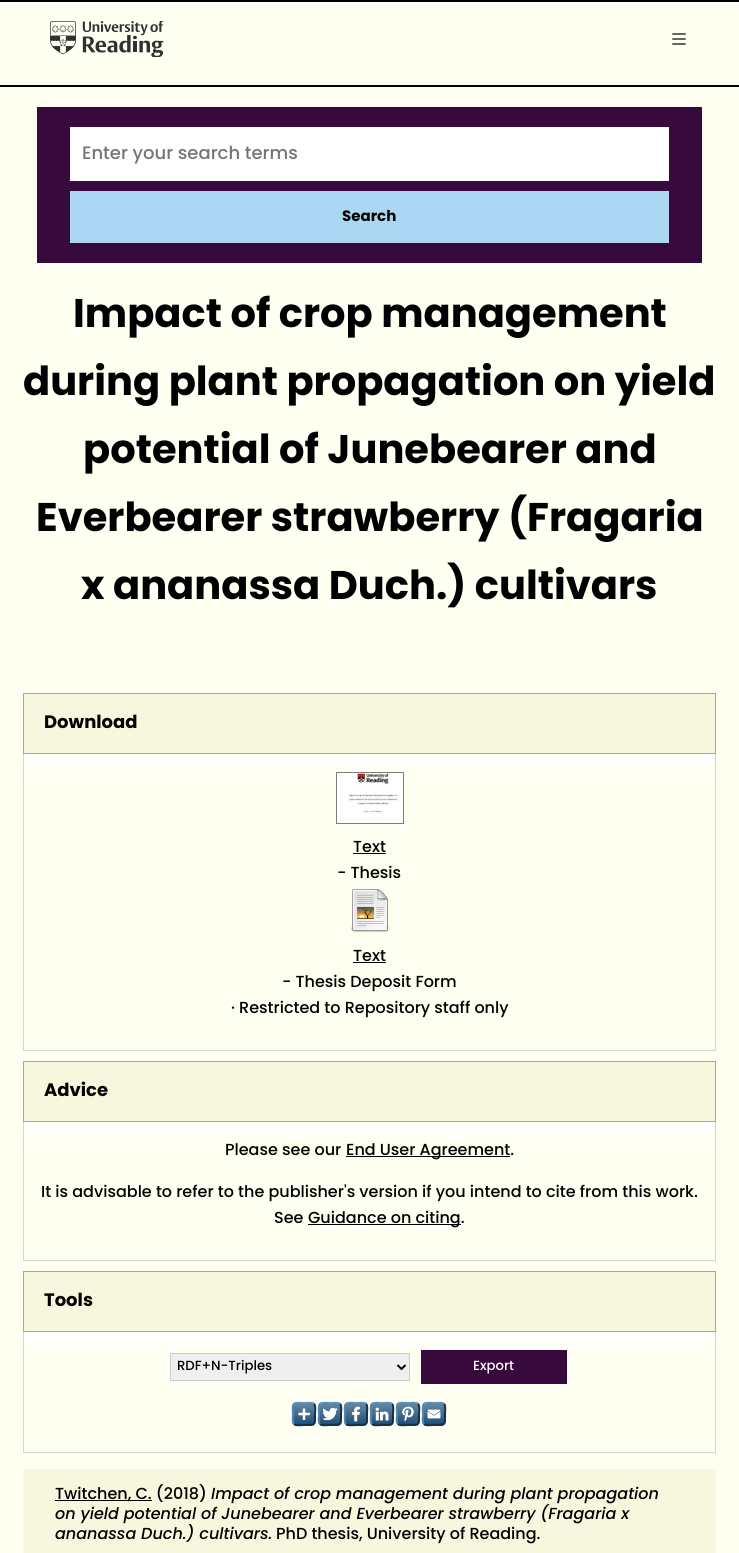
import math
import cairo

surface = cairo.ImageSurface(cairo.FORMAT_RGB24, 739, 1553)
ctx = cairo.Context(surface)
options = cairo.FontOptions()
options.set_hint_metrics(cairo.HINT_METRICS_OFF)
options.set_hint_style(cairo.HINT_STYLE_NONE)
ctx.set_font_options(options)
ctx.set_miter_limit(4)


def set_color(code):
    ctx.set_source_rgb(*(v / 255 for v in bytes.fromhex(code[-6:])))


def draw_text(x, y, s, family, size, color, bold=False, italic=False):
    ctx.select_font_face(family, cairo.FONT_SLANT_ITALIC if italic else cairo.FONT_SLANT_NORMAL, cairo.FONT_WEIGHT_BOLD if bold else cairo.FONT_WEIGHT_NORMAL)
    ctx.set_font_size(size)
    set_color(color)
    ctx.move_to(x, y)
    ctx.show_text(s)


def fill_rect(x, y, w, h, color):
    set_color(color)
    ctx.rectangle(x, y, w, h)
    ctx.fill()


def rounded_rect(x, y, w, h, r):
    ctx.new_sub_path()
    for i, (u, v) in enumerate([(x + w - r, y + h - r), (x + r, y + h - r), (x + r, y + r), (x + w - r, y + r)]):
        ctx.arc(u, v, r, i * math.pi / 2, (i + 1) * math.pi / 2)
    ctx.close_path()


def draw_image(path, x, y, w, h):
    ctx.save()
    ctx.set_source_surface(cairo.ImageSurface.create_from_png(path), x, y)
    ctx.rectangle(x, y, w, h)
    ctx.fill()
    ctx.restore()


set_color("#fffff2")
ctx.paint()
fill_rect(0, 0, 739, 2, "#000000")
fill_rect(0, 85, 739, 2, "#000000")
draw_image("assets/img1.png", 50, 21, 114, 36)
draw_image("assets/img2.png", 672, 33, 14, 12)
fill_rect(37, 107, 665, 156, "#37093d")
fill_rect(70, 127, 599, 54, "#ffffff")
draw_text(82, 159, "Enter your search terms", "Poppins Medium", 18, "#757575")
fill_rect(70, 191, 599, 52, "#acd7f2")
draw_text(342, 221, "Search", "Poppins", 15, "#000000", bold=True)
draw_text(73, 327, "Impact of crop management", "Poppins", 40, "#000000", bold=True)
draw_text(23, 395, "during plant propagation on yield", "Poppins", 40, "#000000", bold=True)
draw_text(83, 463, "potential of Junebearer and", "Poppins", 40, "#000000", bold=True)
draw_text(36, 531, "Everbearer strawberry (Fragaria", "Poppins", 40, "#000000", bold=True)
draw_text(81, 599, "x ananassa Duch.) cultivars", "Poppins", 40, "#000000", bold=True)
set_color("#f7f7de")
ctx.rectangle(23.5, 693.5, 692, 60)
ctx.fill_preserve()
set_color("#e8a11c")
ctx.set_line_width(1)
ctx.stroke()
draw_text(44, 728, "Download", "Poppins", 18, "#000000", bold=True)
draw_image("assets/img3.png", 24, 754, 691, 17)
fill_rect(715, 754, 1, 297, "#d4d4d4")
fill_rect(23, 1050, 693, 1, "#d4d4d4")
fill_rect(23, 754, 1, 297, "#d4d4d4")
draw_image("assets/img4.png", 336, 772, 68, 52)
draw_text(353, 852, "Text", "Poppins Medium", 16, "#000000")
fill_rect(353, 853, 33, 1, "#000000")
draw_text(337, 878, "- Thesis", "Poppins Medium", 16, "#000000")
draw_image("assets/img5.png", 350, 889, 40, 44)
draw_text(353, 961, "Text", "Poppins Medium", 16, "#000000")
fill_rect(353, 962, 33, 1, "#000000")
draw_text(282, 987, "- Thesis Deposit Form", "Poppins Medium", 16, "#000000")
draw_text(231, 1013, "· Restricted to Repository staff only", "Poppins Medium", 16, "#000000")
set_color("#f7f7de")
ctx.rectangle(23.5, 1061.5, 692, 60)
ctx.fill_preserve()
set_color("#e8a11c")
ctx.stroke()
draw_text(44, 1096, "Advice", "Poppins", 18, "#000000", bold=True)
draw_image("assets/img3.png", 24, 1122, 691, 17)
fill_rect(715, 1122, 1, 139, "#d4d4d4")
fill_rect(23, 1260, 693, 1, "#d4d4d4")
fill_rect(23, 1122, 1, 139, "#d4d4d4")
draw_text(225, 1155, "Please see our", "Poppins Medium", 16, "#000000")
fill_rect(346, 1156, 164, 1, "#000000")
draw_text(346, 1155, "End User Agreement.", "Poppins Medium", 16, "#000000")
draw_text(41, 1197, "It is advisable to refer to the publisher's version if you intend to cite from this work.", "Poppins Medium", 16, "#000000")
draw_text(274, 1223, "See", "Poppins Medium", 16, "#000000")
fill_rect(308, 1224, 153, 1, "#000000")
draw_text(308, 1223, "Guidance on citing.", "Poppins Medium", 16, "#000000")
set_color("#f7f7de")
ctx.rectangle(23.5, 1271.5, 692, 60)
ctx.fill_preserve()
set_color("#e8a11c")
ctx.stroke()
draw_text(44, 1306, "Tools", "Poppins", 18, "#000000", bold=True)
draw_image("assets/img3.png", 24, 1332, 691, 17)
fill_rect(715, 1332, 1, 121, "#d4d4d4")
fill_rect(23, 1452, 693, 1, "#d4d4d4")
fill_rect(23, 1332, 1, 121, "#d4d4d4")
set_color("#efefef")
ctx.rectangle(170.5, 1353.5, 239, 27)
ctx.fill_preserve()
set_color("#cccccc")
ctx.stroke()
ctx.new_path()
ctx.move_to(397.5, 1365)
ctx.line_to(401.5, 1369)
ctx.line_to(405.5, 1365)
set_color("#000000")
ctx.set_line_width(2)
ctx.stroke()
draw_text(177, 1370, "RDF+N-Triples", "Poppins Medium", 13.25, "#000000")
fill_rect(421, 1350, 146, 34, "#37093d")
draw_text(473, 1370, "Export", "Poppins Medium", 13.25, "#ffffff")
set_color("#1f4f76")
rounded_rect(292, 1402, 24, 24, 5)
ctx.fill()
draw_image("assets/img6.png", 292, 1404, 24, 19)
ctx.new_path()
ctx.move_to(294, 1404)
ctx.curve_to(296, 1402, 301.5, 1403, 304, 1403)
ctx.curve_to(306.5, 1403, 312, 1402, 314, 1404)
set_color("#5b97c7")
ctx.stroke()
set_color("#1f4f76")
rounded_rect(318, 1402, 24, 24, 5)
ctx.fill()
draw_image("assets/img7.png", 318, 1404, 24, 19)
ctx.new_path()
ctx.move_to(320, 1404)
ctx.curve_to(322, 1402, 327.5, 1403, 330, 1403)
ctx.curve_to(332.5, 1403, 338, 1402, 340, 1404)
set_color("#5b97c7")
ctx.stroke()
set_color("#1f4f76")
rounded_rect(344, 1402, 24, 24, 5)
ctx.fill()
draw_image("assets/img8.png", 344, 1404, 24, 19)
ctx.new_path()
ctx.move_to(346, 1404)
ctx.curve_to(348, 1402, 353.5, 1403, 356, 1403)
ctx.curve_to(358.5, 1403, 364, 1402, 366, 1404)
set_color("#5b97c7")
ctx.stroke()
set_color("#1f4f76")
rounded_rect(370, 1402, 24, 24, 5)
ctx.fill()
draw_image("assets/img9.png", 370, 1404, 24, 19)
ctx.new_path()
ctx.move_to(372, 1404)
ctx.curve_to(374, 1402, 379.5, 1403, 382, 1403)
ctx.curve_to(384.5, 1403, 390, 1402, 392, 1404)
set_color("#5b97c7")
ctx.stroke()
set_color("#1f4f76")
rounded_rect(396, 1402, 24, 24, 5)
ctx.fill()
draw_image("assets/img10.png", 396, 1404, 24, 19)
ctx.new_path()
ctx.move_to(398, 1404)
ctx.curve_to(400, 1402, 405.5, 1403, 408, 1403)
ctx.curve_to(410.5, 1403, 416, 1402, 418, 1404)
set_color("#5b97c7")
ctx.stroke()
set_color("#1f4f76")
rounded_rect(422, 1402, 24, 24, 5)
ctx.fill()
draw_image("assets/img15.png", 422, 1404, 24, 19)
ctx.new_path()
ctx.move_to(424, 1404)
ctx.curve_to(426, 1402, 431.5, 1403, 434, 1403)
ctx.curve_to(436.5, 1403, 442, 1402, 444, 1404)
set_color("#5b97c7")
ctx.stroke()
ctx.new_path()
ctx.move_to(314, 1404)
ctx.curve_to(316, 1406, 315, 1411.5, 315, 1414)
ctx.curve_to(315, 1425.5, 315.5, 1425, 304, 1425)
ctx.curve_to(301.5, 1425, 296, 1426, 294, 1424)
set_color("#13324a")
ctx.stroke()
ctx.new_path()
ctx.move_to(294, 1424)
ctx.curve_to(292, 1422, 293, 1416.5, 293, 1414)
ctx.curve_to(293, 1411.5, 292, 1406, 294, 1404)
set_color("#5287b3")
ctx.stroke()
ctx.new_path()
ctx.move_to(340, 1404)
ctx.curve_to(342, 1406, 341, 1411.5, 341, 1414)
ctx.curve_to(341, 1425.5, 341.5, 1425, 330, 1425)
ctx.curve_to(327.5, 1425, 322, 1426, 320, 1424)
set_color("#13324a")
ctx.stroke()
ctx.new_path()
ctx.move_to(320, 1424)
ctx.curve_to(318, 1422, 319, 1416.5, 319, 1414)
ctx.curve_to(319, 1411.5, 318, 1406, 320, 1404)
set_color("#5287b3")
ctx.stroke()
ctx.new_path()
ctx.move_to(366, 1404)
ctx.curve_to(368, 1406, 367, 1411.5, 367, 1414)
ctx.curve_to(367, 1425.5, 367.5, 1425, 356, 1425)
ctx.curve_to(353.5, 1425, 348, 1426, 346, 1424)
set_color("#13324a")
ctx.stroke()
ctx.new_path()
ctx.move_to(346, 1424)
ctx.curve_to(344, 1422, 345, 1416.5, 345, 1414)
ctx.curve_to(345, 1411.5, 344, 1406, 346, 1404)
set_color("#5287b3")
ctx.stroke()
ctx.new_path()
ctx.move_to(392, 1404)
ctx.curve_to(394, 1406, 393, 1411.5, 393, 1414)
ctx.curve_to(393, 1425.5, 393.5, 1425, 382, 1425)
ctx.curve_to(379.5, 1425, 374, 1426, 372, 1424)
set_color("#13324a")
ctx.stroke()
ctx.new_path()
ctx.move_to(372, 1424)
ctx.curve_to(370, 1422, 371, 1416.5, 371, 1414)
ctx.curve_to(371, 1411.5, 370, 1406, 372, 1404)
set_color("#5287b3")
ctx.stroke()
ctx.new_path()
ctx.move_to(418, 1404)
ctx.curve_to(420, 1406, 419, 1411.5, 419, 1414)
ctx.curve_to(419, 1425.5, 419.5, 1425, 408, 1425)
ctx.curve_to(405.5, 1425, 400, 1426, 398, 1424)
set_color("#13324a")
ctx.stroke()
ctx.new_path()
ctx.move_to(398, 1424)
ctx.curve_to(396, 1422, 397, 1416.5, 397, 1414)
ctx.curve_to(397, 1411.5, 396, 1406, 398, 1404)
set_color("#5287b3")
ctx.stroke()
ctx.new_path()
ctx.move_to(444, 1404)
ctx.curve_to(446, 1406, 445, 1411.5, 445, 1414)
ctx.curve_to(445, 1425.5, 445.5, 1425, 434, 1425)
ctx.curve_to(431.5, 1425, 426, 1426, 424, 1424)
set_color("#13324a")
ctx.stroke()
ctx.new_path()
ctx.move_to(424, 1424)
ctx.curve_to(422, 1422, 423, 1416.5, 423, 1414)
ctx.curve_to(423, 1411.5, 422, 1406, 424, 1404)
set_color("#5287b3")
ctx.stroke()
draw_image("assets/img11.png", 322, 1407, 16, 14)
draw_image("assets/img12.png", 352, 1406, 8, 16)
draw_image("assets/img13.png", 375, 1407, 14, 14)
draw_image("assets/img14.png", 402, 1406, 12, 16)
fill_rect(309, 1413, 1, 2, "#ffffff")
draw_image("assets/img16.png", 427, 1409, 14, 10)
fill_rect(303, 1419, 2, 1, "#ffffff")
fill_rect(23, 1469, 693, 84, "#f7f7de")
fill_rect(55, 1500, 97, 1, "#000000")
draw_text(55, 1499, "Twitchen, C. (2018)", "Poppins Medium", 16, "#000000")
draw_text(211, 1499, "Impact of crop management during plant propagation", "Poppins Medium", 16, "#000000", italic=True)
draw_text(55, 1519, "on yield potential of Junebearer and Everbearer strawberry (Fragaria x", "Poppins Medium", 16, "#000000", italic=True)
draw_text(55, 1539, "ananassa Duch.) cultivars.", "Poppins Medium", 16, "#000000", italic=True)
draw_text(276, 1539, "PhD thesis, University of Reading.", "Poppins Medium", 16, "#000000")
surface.write_to_png("output.png")
